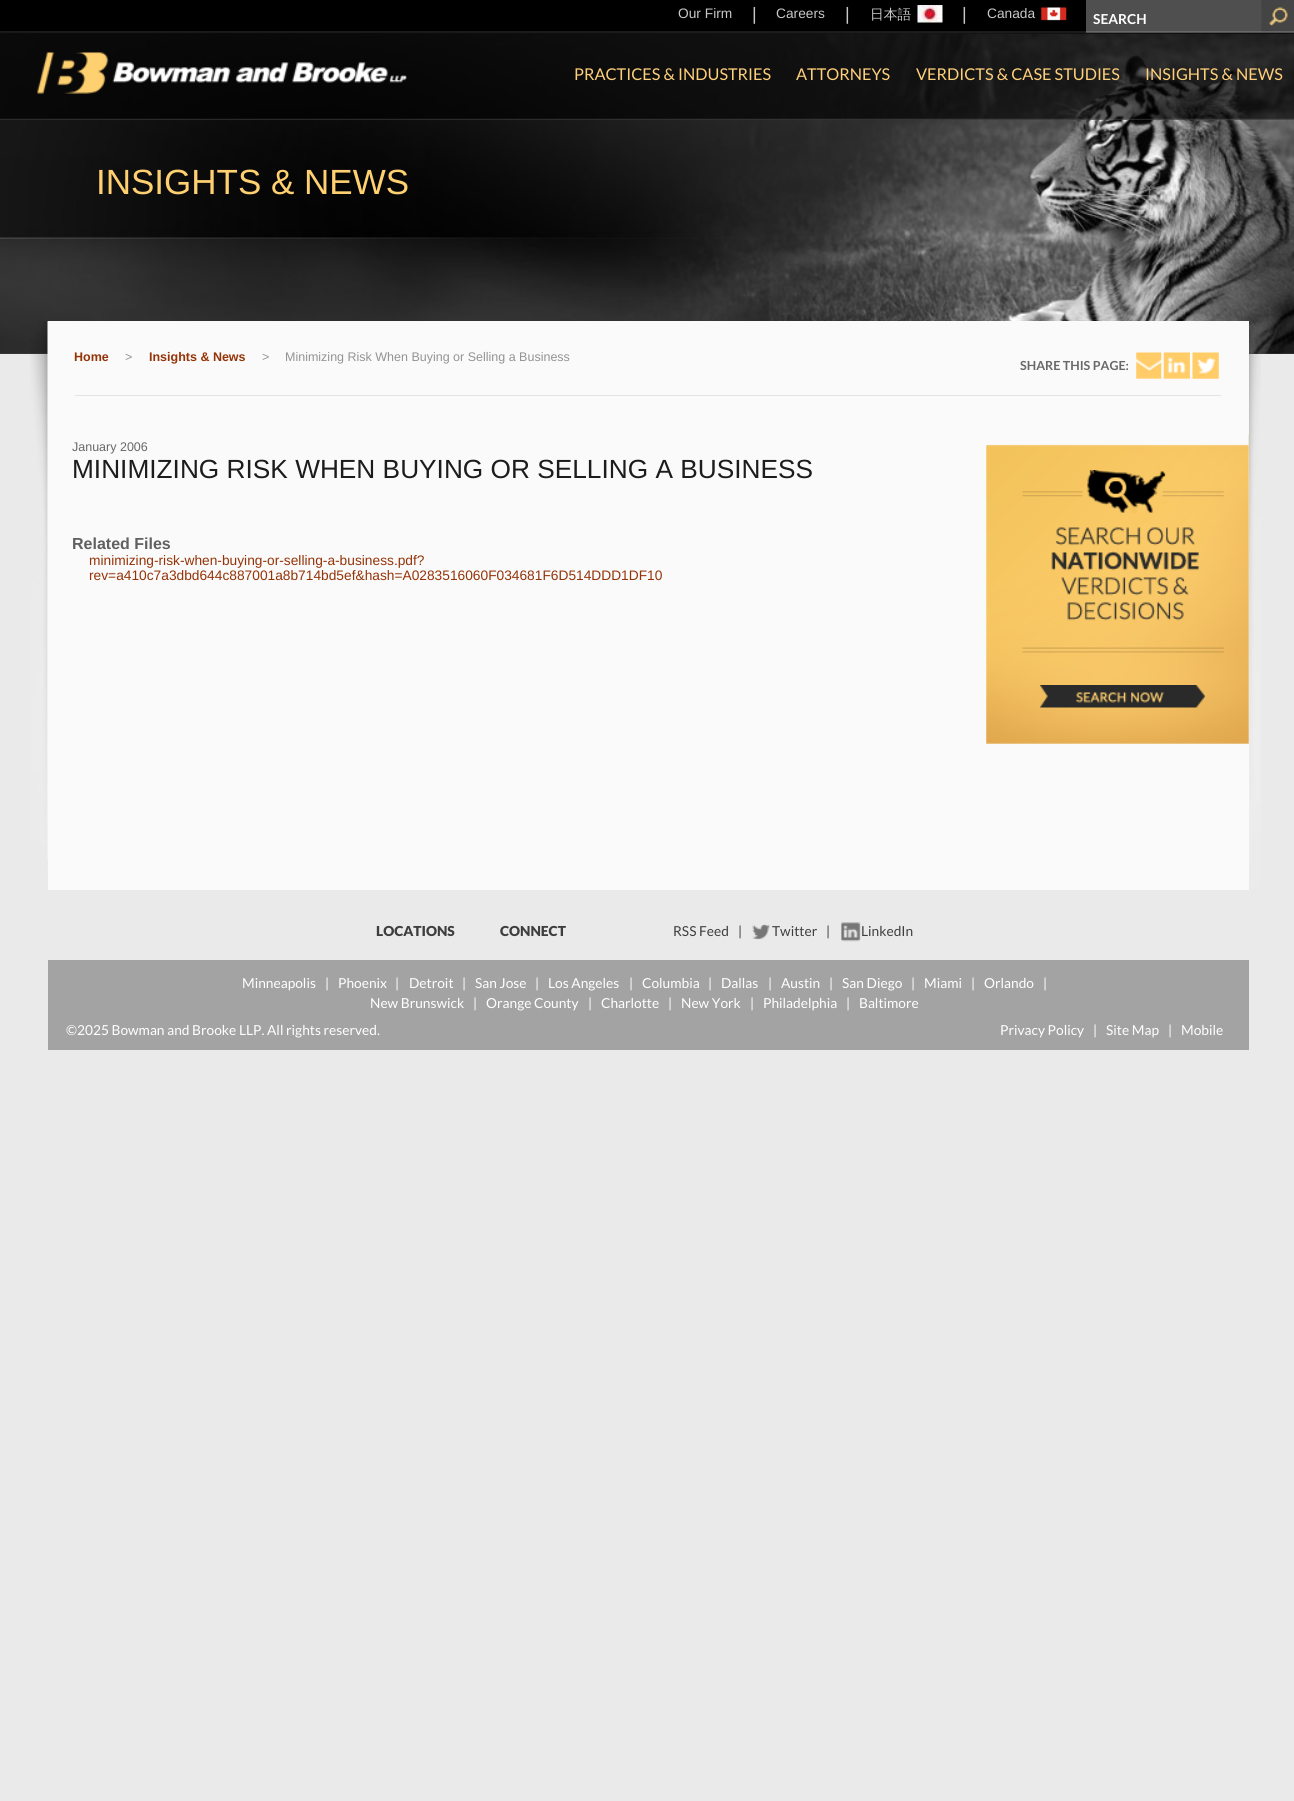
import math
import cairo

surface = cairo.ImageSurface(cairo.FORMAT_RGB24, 1294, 1801)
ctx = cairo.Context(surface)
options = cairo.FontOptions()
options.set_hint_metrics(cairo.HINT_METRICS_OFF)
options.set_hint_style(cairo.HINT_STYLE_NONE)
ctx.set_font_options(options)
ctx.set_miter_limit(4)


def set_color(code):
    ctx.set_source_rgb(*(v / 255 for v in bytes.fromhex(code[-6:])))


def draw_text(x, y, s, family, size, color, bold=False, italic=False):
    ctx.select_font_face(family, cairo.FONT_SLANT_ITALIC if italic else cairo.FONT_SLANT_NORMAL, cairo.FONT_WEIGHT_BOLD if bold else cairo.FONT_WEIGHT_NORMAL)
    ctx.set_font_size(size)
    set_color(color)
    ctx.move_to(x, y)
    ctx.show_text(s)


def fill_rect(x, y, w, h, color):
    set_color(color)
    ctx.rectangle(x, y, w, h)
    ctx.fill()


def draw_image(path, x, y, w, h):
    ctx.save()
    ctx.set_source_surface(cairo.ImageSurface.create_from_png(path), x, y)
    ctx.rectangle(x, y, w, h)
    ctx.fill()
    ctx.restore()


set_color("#eaeaea")
ctx.paint()
draw_image("assets/img6.png", 0, 353, 1294, 1)
draw_image("assets/img7.png", 0, 31, 1294, 323)
draw_image("assets/img1.png", 0, 0, 1294, 120)
draw_text(678, 18, "Our Firm", "Liberation Sans", 13.75, "#c8c8c8")
draw_text(752, 20, "|", "Liberation Sans", 18, "#c8c8c8")
draw_text(776, 18, "Careers", "Liberation Sans", 13.75, "#c8c8c8")
draw_text(845, 20, "|", "Liberation Sans", 18, "#c8c8c8")
draw_text(870, 19, "日本語", "WenQuanYi Zen Hei Medium", 13.75, "#c8c8c8")
draw_image("assets/img2.png", 917, 5, 26, 18)
draw_text(962, 20, "|", "Liberation Sans", 18, "#c8c8c8")
draw_text(987, 18, "Canada", "Liberation Sans", 13.75, "#c8c8c8")
draw_image("assets/img3.png", 1041, 7, 26, 14)
fill_rect(1086, 0, 208, 33, "#4f4f4f")
fill_rect(1086, 31, 208, 1, "#696969")
draw_text(1093, 24, "SEARCH", "Lato", 13.75, "#ffffff", bold=True)
draw_image("assets/img4.png", 1261, 0, 33, 32)
draw_image("assets/img5.png", 37, 52, 370, 42)
draw_text(574, 80, "PRACTICES & INDUSTRIES", "Lato", 16.25, "#ffd07a")
draw_text(796, 80, "ATTORNEYS", "Lato", 16.25, "#ffd07a")
draw_text(916, 80, "VERDICTS & CASE STUDIES", "Lato", 16.25, "#ffd07a")
draw_text(1145, 80, "INSIGHTS & NEWS", "Lato", 16.25, "#ffd07a")
draw_text(96, 194, "INSIGHTS & NEWS", "Liberation Sans", 35, "#ffd070")
draw_image("assets/img8.png", 30, 321, 1231, 569)
fill_rect(48, 321, 1201, 569, "#fafafa")
fill_rect(75, 395, 1146, 1, "#e3e3e3")
draw_text(74, 361, "Home", "Liberation Sans", 12.5, "#953307", bold=True)
draw_text(125, 361, ">", "Liberation Sans", 12.5, "#939393")
draw_text(149, 361, "Insights & News", "Liberation Sans", 12.5, "#953307", bold=True)
draw_text(262, 361, ">", "Liberation Sans", 12.5, "#939393")
draw_text(285, 361, "Minimizing Risk When Buying or Selling a Business", "Liberation Sans", 12.5, "#939393")
draw_text(1020, 370, "SHARE THIS PAGE:", "Lato", 12.5, "#686868", bold=True)
draw_image("assets/img9.png", 1136, 352, 26, 27)
draw_image("assets/img10.png", 1163, 352, 27, 27)
draw_image("assets/img11.png", 1192, 352, 27, 27)
draw_text(72, 451, "January 2006", "Liberation Sans", 12.5, "#686868")
draw_text(72, 478, "MINIMIZING RISK WHEN BUYING OR SELLING A BUSINESS", "Liberation Sans", 26.25, "#1c1c1c")
draw_text(72, 549, "Related Files", "Liberation Sans", 16, "#616060", bold=True)
draw_text(89, 565, "minimizing-risk-when-buying-or-selling-a-business.pdf?", "Liberation Sans", 13.75, "#953307")
draw_text(89, 580, "rev=a410c7a3dbd644c887001a8b714bd5ef&hash=A0283516060F034681F6D514DDD1DF10", "Liberation Sans", 13.75, "#953307")
draw_image("assets/img12.png", 986, 434, 263, 310)
draw_image("assets/img13.png", 1022, 470, 202, 183)
draw_image("assets/img14.png", 1040, 685, 165, 23)
draw_text(376, 936, "LOCATIONS", "Lato Black", 13.75, "#3e3e3e")
draw_text(500, 936, "CONNECT", "Lato Black", 13.75, "#3e3e3e")
draw_text(673, 936, "RSS Feed", "Lato", 13.75, "#3e3e3e")
draw_text(738, 936, "|", "Lato", 13.75, "#3e3e3e")
draw_image("assets/img15.png", 752, 924, 18, 16)
draw_text(772, 936, "Twitter", "Lato", 13.75, "#3e3e3e")
draw_text(826, 936, "|", "Lato", 13.75, "#3e3e3e")
draw_image("assets/img16.png", 841, 922, 20, 20)
draw_text(861, 936, "LinkedIn", "Lato", 13.75, "#3e3e3e")
fill_rect(48, 960, 1201, 90, "#a3a3a3")
draw_text(242, 988, "Minneapolis", "Lato", 13.75, "#ffffff")
draw_text(325, 988, "|", "Lato", 13.75, "#ffffff")
draw_text(338, 988, "Phoenix", "Lato", 13.75, "#ffffff")
draw_text(395, 988, "|", "Lato", 13.75, "#ffffff")
draw_text(409, 988, "Detroit", "Lato", 13.75, "#ffffff")
draw_text(462, 988, "|", "Lato", 13.75, "#ffffff")
draw_text(475, 988, "San Jose", "Lato", 13.75, "#ffffff")
draw_text(535, 988, "|", "Lato", 13.75, "#ffffff")
draw_text(548, 988, "Los Angeles", "Lato", 13.75, "#ffffff")
draw_text(629, 988, "|", "Lato", 13.75, "#ffffff")
draw_text(642, 988, "Columbia", "Lato", 13.75, "#ffffff")
draw_text(708, 988, "|", "Lato", 13.75, "#ffffff")
draw_text(721, 988, "Dallas", "Lato", 13.75, "#ffffff")
draw_text(768, 988, "|", "Lato", 13.75, "#ffffff")
draw_text(781, 988, "Austin", "Lato", 13.75, "#ffffff")
draw_text(829, 988, "|", "Lato", 13.75, "#ffffff")
draw_text(842, 988, "San Diego", "Lato", 13.75, "#ffffff")
draw_text(911, 988, "|", "Lato", 13.75, "#ffffff")
draw_text(924, 988, "Miami", "Lato", 13.75, "#ffffff")
draw_text(971, 988, "|", "Lato", 13.75, "#ffffff")
draw_text(984, 988, "Orlando", "Lato", 13.75, "#ffffff")
draw_text(1043, 988, "|", "Lato", 13.75, "#ffffff")
draw_text(370, 1008, "New Brunswick", "Lato", 13.75, "#ffffff")
draw_text(473, 1008, "|", "Lato", 13.75, "#ffffff")
draw_text(486, 1008, "Orange County", "Lato", 13.75, "#ffffff")
draw_text(588, 1008, "|", "Lato", 13.75, "#ffffff")
draw_text(601, 1008, "Charlotte", "Lato", 13.75, "#ffffff")
draw_text(668, 1008, "|", "Lato", 13.75, "#ffffff")
draw_text(681, 1008, "New York", "Lato", 13.75, "#ffffff")
draw_text(750, 1008, "|", "Lato", 13.75, "#ffffff")
draw_text(763, 1008, "Philadelphia", "Lato", 13.75, "#ffffff")
draw_text(846, 1008, "|", "Lato", 13.75, "#ffffff")
draw_text(859, 1008, "Baltimore", "Lato", 13.75, "#ffffff")
draw_text(66, 1035, "©2025 Bowman and Brooke LLP. All rights reserved.", "Lato", 13.75, "#ffffff")
draw_text(1000, 1035, "Privacy Policy", "Lato", 13.75, "#ffffff")
draw_text(1093, 1035, "|", "Lato", 13.75, "#ffffff")
draw_text(1106, 1035, "Site Map", "Lato", 13.75, "#ffffff")
draw_text(1168, 1035, "|", "Lato", 13.75, "#ffffff")
draw_text(1181, 1035, "Mobile", "Lato", 13.75, "#ffffff")
surface.write_to_png("output.png")
